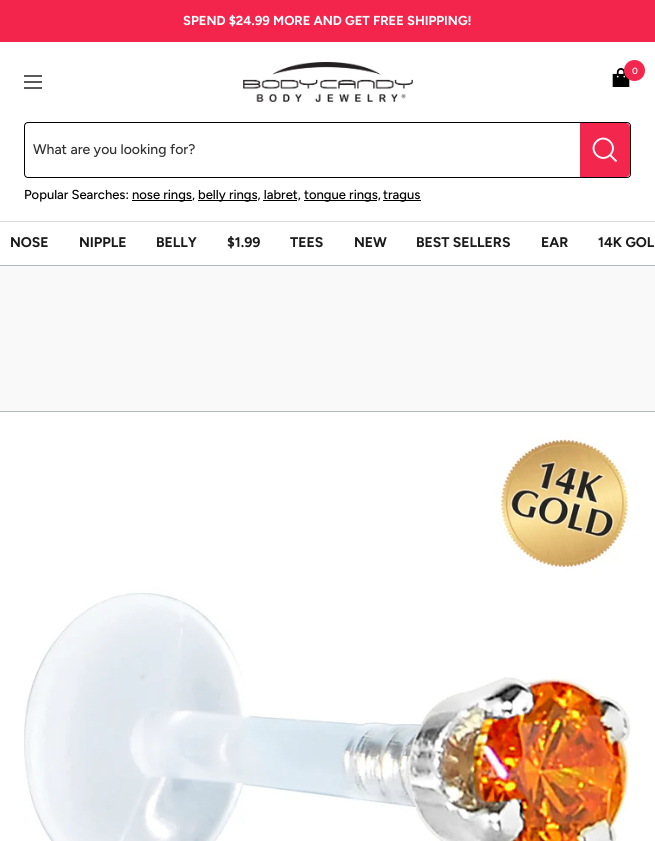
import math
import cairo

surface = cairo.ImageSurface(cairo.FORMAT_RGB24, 655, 841)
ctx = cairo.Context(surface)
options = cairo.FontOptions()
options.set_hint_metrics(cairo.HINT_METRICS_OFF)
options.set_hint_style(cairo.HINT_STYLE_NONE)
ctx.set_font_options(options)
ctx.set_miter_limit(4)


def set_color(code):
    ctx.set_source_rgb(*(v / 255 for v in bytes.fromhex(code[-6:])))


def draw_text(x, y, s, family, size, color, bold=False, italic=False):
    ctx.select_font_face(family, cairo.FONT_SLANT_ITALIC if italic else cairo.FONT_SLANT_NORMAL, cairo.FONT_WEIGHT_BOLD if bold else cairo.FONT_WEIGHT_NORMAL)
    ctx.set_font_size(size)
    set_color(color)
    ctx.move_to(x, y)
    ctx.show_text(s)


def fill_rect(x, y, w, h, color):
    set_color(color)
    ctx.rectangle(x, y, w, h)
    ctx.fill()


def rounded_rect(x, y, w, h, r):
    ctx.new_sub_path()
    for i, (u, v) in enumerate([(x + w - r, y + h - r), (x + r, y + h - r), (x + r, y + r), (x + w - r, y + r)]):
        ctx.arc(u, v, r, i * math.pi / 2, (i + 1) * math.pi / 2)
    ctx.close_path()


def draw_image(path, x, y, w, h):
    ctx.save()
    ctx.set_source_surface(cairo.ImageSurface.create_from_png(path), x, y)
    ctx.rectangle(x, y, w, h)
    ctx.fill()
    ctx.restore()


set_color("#ffffff")
ctx.paint()
fill_rect(0, 0, 655, 42, "#f3254d")
draw_text(183, 25, "SPEND $24.99 MORE AND GET FREE SHIPPING!", "Figtree", 13, "#ffffff", bold=True)
fill_rect(0, 221, 655, 1, "#dddddd")
draw_image("assets/img1.png", 243, 62, 170, 40)
draw_image("assets/img2.png", 612, 68, 18, 19)
set_color("#f3264d")
ctx.arc(634.5, 70.5, 10.5, 0, 2 * math.pi)
ctx.fill()
draw_text(632, 74, "0", "Figtree SemiBold", 9, "#ffffff")
ctx.new_path()
ctx.move_to(24, 76)
ctx.line_to(42, 76)
ctx.move_to(24, 88)
ctx.line_to(42, 88)
ctx.close_path()
ctx.move_to(24, 82)
ctx.line_to(42, 82)
ctx.close_path()
set_color("#000000")
ctx.set_line_width(1.3)
ctx.stroke()
rounded_rect(24.5, 122.5, 606, 55, 3.5)
ctx.set_line_width(1)
ctx.stroke()
draw_text(33, 154, "What are you looking for?", "Figtree Medium", 14, "#333333")
set_color("#f3264d")
ctx.new_path()
ctx.move_to(580, 123)
ctx.line_to(626, 123)
ctx.curve_to(628, 123, 630, 125, 630, 127)
ctx.line_to(630, 173)
ctx.curve_to(630, 175, 628, 177, 626, 177)
ctx.line_to(580, 177)
ctx.close_path()
ctx.fill()
ctx.new_path()
ctx.move_to(610, 155)
ctx.curve_to(619, 146, 605.5, 132.5, 596.5, 141.5)
ctx.curve_to(587.5, 150.5, 601, 164, 610, 155)
ctx.close_path()
ctx.move_to(610, 155)
ctx.line_to(616.5, 161.5)
set_color("#ffffff")
ctx.set_line_width(1.9)
ctx.stroke()
draw_text(24, 199, "Popular Searches:", "Figtree Medium", 13, "#000000")
fill_rect(132, 200, 60, 1, "#000000")
draw_text(132, 199, "nose rings,", "Figtree Medium", 13, "#000000")
fill_rect(198, 200, 59, 1, "#000000")
draw_text(198, 199, "belly rings, labret,", "Figtree Medium", 13, "#000000")
fill_rect(304, 200, 73, 1, "#000000")
draw_text(304, 199, "tongue rings,", "Figtree Medium", 13, "#000000")
fill_rect(383, 200, 38, 1, "#000000")
draw_text(383, 199, "tragus", "Figtree Medium", 13, "#000000")
fill_rect(263, 200, 34, 1, "#000000")
draw_text(10, 247, "NOSE", "Figtree", 14, "#1a1a1a", bold=True)
draw_text(79, 247, "NIPPLE", "Figtree", 14, "#1a1a1a", bold=True)
draw_text(156, 247, "BELLY", "Figtree", 14, "#1a1a1a", bold=True)
draw_text(227, 247, "$1.99", "Figtree", 14, "#1a1a1a", bold=True)
draw_text(290, 247, "TEES", "Figtree", 14, "#1a1a1a", bold=True)
draw_text(354, 247, "NEW", "Figtree", 14, "#1a1a1a", bold=True)
draw_text(416, 247, "BEST SELLERS", "Figtree", 14, "#1a1a1a", bold=True)
draw_text(541, 247, "EAR", "Figtree", 14, "#1a1a1a", bold=True)
draw_text(598, 247, "14K GOL", "Figtree", 14, "#1a1a1a", bold=True)
fill_rect(0, 266, 655, 145, "#f9f9f9")
fill_rect(0, 265, 655, 1, "#b0babc")
fill_rect(0, 411, 655, 1, "#b0babc")
draw_image("assets/img3.png", 24, 436, 607, 405)
surface.write_to_png("output.png")
